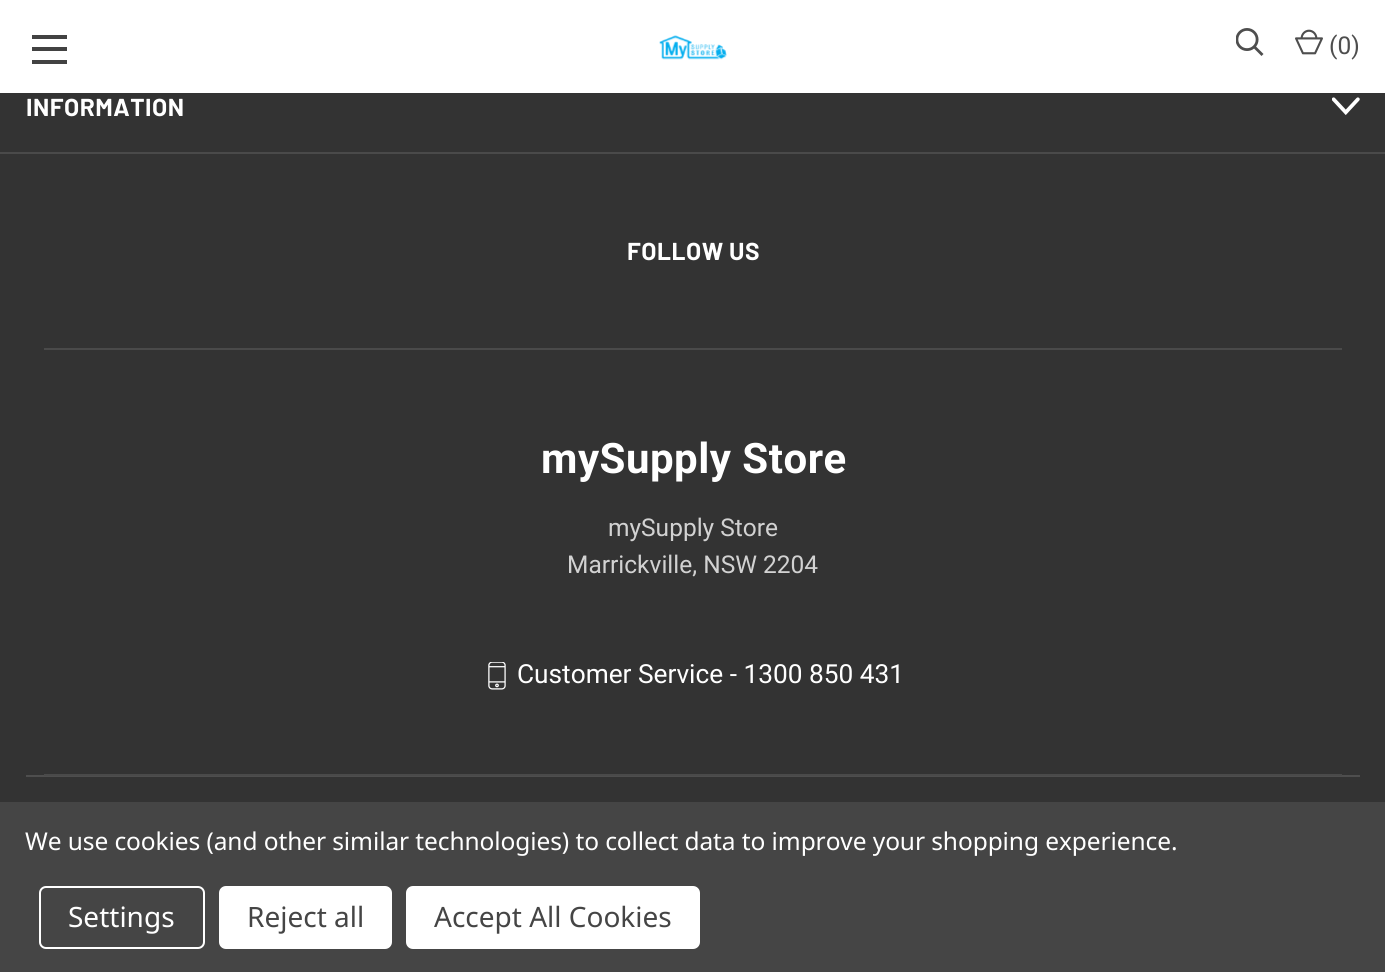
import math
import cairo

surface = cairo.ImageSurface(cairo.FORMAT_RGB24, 1385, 972)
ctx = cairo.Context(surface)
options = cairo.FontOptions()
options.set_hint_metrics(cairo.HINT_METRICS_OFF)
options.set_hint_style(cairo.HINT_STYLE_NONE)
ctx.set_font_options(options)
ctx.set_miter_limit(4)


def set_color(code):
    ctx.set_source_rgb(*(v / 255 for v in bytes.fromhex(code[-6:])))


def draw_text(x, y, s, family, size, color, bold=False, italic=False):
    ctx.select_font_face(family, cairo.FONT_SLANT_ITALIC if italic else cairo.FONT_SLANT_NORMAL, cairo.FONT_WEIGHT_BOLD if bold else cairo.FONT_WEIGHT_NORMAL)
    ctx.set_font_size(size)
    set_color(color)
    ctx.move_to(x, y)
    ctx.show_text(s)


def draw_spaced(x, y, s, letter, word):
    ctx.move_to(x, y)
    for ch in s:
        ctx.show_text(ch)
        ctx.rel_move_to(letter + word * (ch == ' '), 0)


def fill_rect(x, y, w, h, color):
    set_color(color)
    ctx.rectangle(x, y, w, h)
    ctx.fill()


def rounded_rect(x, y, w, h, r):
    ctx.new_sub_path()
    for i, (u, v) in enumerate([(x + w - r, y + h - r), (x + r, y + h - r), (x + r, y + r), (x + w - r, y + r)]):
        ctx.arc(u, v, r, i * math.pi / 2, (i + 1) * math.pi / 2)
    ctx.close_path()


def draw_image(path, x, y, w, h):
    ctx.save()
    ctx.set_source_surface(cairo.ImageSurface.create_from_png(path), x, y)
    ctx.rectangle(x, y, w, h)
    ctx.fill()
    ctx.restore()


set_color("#333333")
ctx.paint()
fill_rect(0, 0, 1385, 93, "#ffffff")
fill_rect(32, 47, 35, 4, "#424242")
fill_rect(32, 35, 35, 4, "#424242")
fill_rect(32, 60, 35, 4, "#424242")
draw_image("assets/img1.png", 659, 35, 68, 25)
draw_image("assets/img2.png", 1236, 28, 28, 28)
draw_image("assets/img3.png", 1295, 29, 28, 26)
draw_text(1329, 54, "(0)", "Roboto", 24.5, "#4e4e4e")
fill_rect(0, 152, 1385, 2, "#4a4a4a")
ctx.select_font_face("Barlow", cairo.FONT_SLANT_NORMAL, cairo.FONT_WEIGHT_BOLD)
set_color("#ffffff")
draw_spaced(26, 116, "INFORMATION", 0.5, 0)
draw_image("assets/img4.png", 1332, 97, 28, 18)
fill_rect(44, 348, 1298, 2, "#4a4a4a")
set_color("#ffffff")
draw_spaced(627, 260, "FOLLOW US", 0.5, 0)
fill_rect(26, 775, 1334, 2, "#4e4e4e")
fill_rect(44, 774, 1298, 2, "#4a4a4a")
ctx.select_font_face("Roboto", cairo.FONT_SLANT_NORMAL, cairo.FONT_WEIGHT_BOLD)
ctx.set_font_size(42)
set_color("#ffffff")
draw_spaced(541, 473, "mySupply Store", 0.5, 0)
draw_text(608, 536, "mySupply Store", "Roboto", 24.5, "#d2d2d2")
draw_text(567, 573, "Marrickville, NSW 2204", "Roboto", 24.5, "#d2d2d2")
draw_image("assets/img5.png", 488, 662, 18, 28)
draw_text(517, 683, "Customer Service - 1300 850 431", "Roboto", 26.25, "#ffffff")
fill_rect(0, 802, 1385, 170, "#454545")
ctx.select_font_face("Noto Sans")
ctx.set_font_size(24.5)
set_color("#ffffff")
draw_spaced(25, 850, "We use cookies (and other similar technologies) to collect data to improve your shopping experience.", -0.09, 0)
rounded_rect(40, 887, 164, 61, 6)
ctx.stroke()
draw_text(68, 927, "Settings", "Noto Sans", 28, "#ffffff")
rounded_rect(219, 886, 173, 63, 7)
ctx.fill()
draw_text(247, 927, "Reject all", "Noto Sans", 28, "#454545")
set_color("#ffffff")
rounded_rect(406, 886, 294, 63, 7)
ctx.fill()
draw_text(434, 927, "Accept All Cookies", "Noto Sans", 28, "#454545")
surface.write_to_png("output.png")
